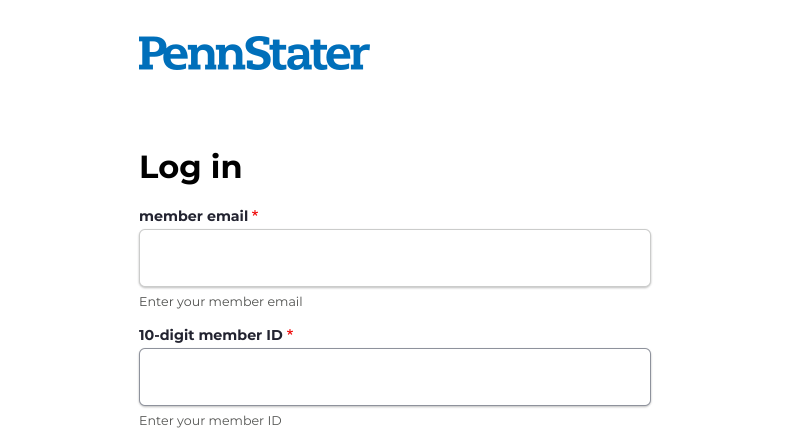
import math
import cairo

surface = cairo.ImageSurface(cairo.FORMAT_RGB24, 790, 428)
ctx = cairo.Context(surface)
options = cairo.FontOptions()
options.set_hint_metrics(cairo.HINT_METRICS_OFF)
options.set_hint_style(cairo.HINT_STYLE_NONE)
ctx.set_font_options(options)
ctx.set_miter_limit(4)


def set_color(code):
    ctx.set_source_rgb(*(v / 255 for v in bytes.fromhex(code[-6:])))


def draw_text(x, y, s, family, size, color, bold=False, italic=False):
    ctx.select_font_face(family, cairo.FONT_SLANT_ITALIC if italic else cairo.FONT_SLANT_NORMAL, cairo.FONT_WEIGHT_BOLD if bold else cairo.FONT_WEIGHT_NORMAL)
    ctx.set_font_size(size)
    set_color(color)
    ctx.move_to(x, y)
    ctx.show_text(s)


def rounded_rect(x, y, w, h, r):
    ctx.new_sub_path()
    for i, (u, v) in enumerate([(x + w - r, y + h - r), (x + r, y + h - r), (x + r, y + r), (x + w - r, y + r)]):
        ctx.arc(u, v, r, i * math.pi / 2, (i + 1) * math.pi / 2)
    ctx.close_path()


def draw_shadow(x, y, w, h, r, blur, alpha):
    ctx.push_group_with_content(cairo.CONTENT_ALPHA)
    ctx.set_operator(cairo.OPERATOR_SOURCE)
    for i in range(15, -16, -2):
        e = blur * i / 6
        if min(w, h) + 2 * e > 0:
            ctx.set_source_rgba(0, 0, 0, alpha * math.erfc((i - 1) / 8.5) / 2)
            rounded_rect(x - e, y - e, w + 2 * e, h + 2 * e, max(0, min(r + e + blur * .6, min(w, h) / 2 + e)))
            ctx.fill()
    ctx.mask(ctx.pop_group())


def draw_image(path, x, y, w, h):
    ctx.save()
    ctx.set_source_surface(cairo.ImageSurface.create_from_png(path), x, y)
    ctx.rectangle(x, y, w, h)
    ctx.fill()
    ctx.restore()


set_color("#ffffff")
ctx.paint()
draw_image("assets/img1.png", 139, 36, 231, 34)
draw_text(139, 178, "Log in", "Montserrat", 32, "#000000", bold=True)
draw_text(139, 221, "member email", "Montserrat", 14.25, "#222330", bold=True)
draw_image("assets/img2.png", 252, 210, 6, 6)
set_color("#000000")
draw_shadow(139, 230, 512, 58, 6, 1, 0.25)
set_color("#ffffff")
rounded_rect(139.5, 229.5, 511, 57, 5.5)
ctx.fill_preserve()
set_color("#cbcccb")
ctx.set_line_width(1)
ctx.stroke()
draw_text(139, 306, "Enter your member email", "Montserrat", 12.6, "#4d4e4c")
draw_text(139, 340, "10-digit member ID", "Montserrat", 14.25, "#222330", bold=True)
draw_image("assets/img2.png", 287, 329, 6, 6)
set_color("#000000")
draw_shadow(139, 349, 512, 58, 6, 1, 0.25)
set_color("#ffffff")
rounded_rect(139.5, 348.5, 511, 57, 5.5)
ctx.fill_preserve()
set_color("#8e929c")
ctx.stroke()
draw_text(139, 425, "Enter your member ID", "Montserrat", 12.6, "#4d4e4c")
set_color("#fbfbff")
draw_shadow(135, 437, 512, 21, 6, 8, 1)
surface.write_to_png("output.png")
